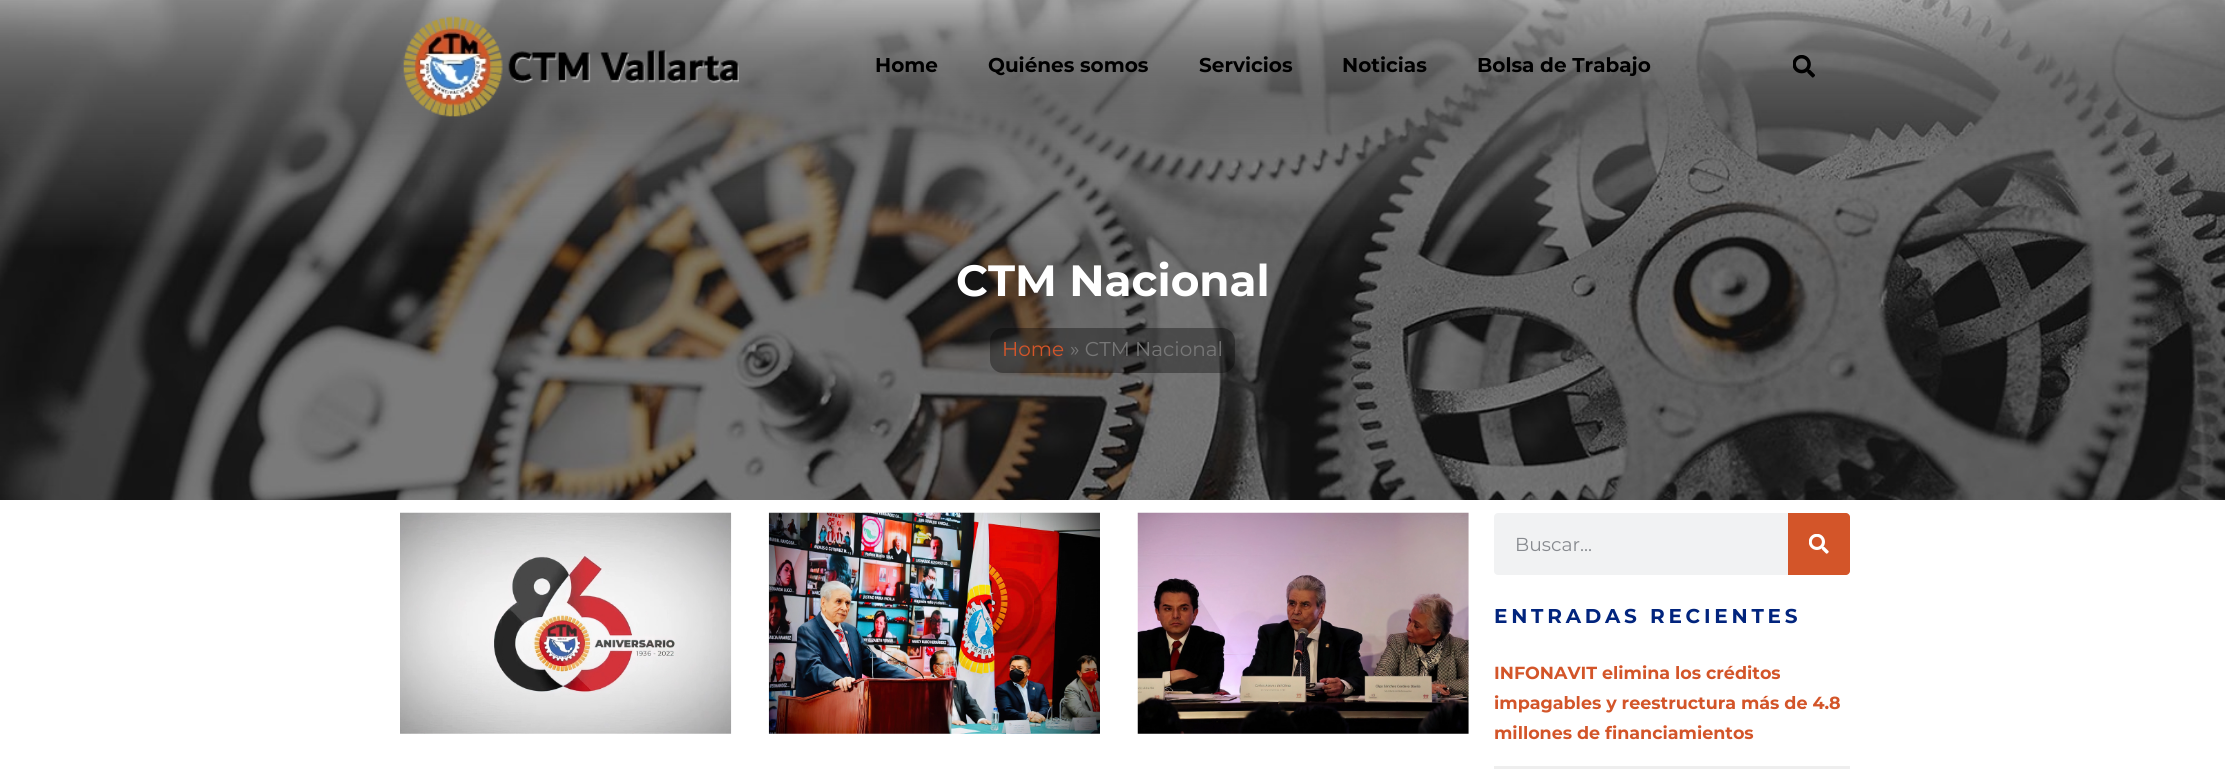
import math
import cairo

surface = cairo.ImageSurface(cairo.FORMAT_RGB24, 2225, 783)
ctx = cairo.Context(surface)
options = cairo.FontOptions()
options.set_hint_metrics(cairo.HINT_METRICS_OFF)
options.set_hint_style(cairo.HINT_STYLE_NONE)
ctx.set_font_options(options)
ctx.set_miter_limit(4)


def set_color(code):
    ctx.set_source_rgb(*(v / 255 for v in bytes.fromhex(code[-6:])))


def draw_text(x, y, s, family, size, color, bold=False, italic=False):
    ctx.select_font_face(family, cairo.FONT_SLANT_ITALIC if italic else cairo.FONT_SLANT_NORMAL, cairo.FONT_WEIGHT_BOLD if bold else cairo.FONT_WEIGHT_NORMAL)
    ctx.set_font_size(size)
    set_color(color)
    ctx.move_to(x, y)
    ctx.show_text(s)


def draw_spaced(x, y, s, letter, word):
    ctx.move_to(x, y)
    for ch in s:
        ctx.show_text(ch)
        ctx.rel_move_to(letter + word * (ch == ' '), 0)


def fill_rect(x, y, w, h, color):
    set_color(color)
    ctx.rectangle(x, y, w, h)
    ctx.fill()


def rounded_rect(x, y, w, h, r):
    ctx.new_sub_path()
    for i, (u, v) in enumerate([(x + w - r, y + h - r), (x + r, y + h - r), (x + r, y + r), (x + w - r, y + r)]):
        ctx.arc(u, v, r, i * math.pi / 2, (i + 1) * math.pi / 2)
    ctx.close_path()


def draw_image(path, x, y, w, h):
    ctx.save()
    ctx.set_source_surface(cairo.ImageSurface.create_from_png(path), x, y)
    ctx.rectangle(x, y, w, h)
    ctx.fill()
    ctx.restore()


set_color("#ffffff")
ctx.paint()
draw_image("assets/img3.png", 0, 0, 2225, 500)
draw_image("assets/img1.png", 403, 16, 336, 101)
draw_text(875, 72, "Home", "Montserrat", 20, "#000000", bold=True)
draw_text(988, 72, "Quiénes somos", "Montserrat", 20, "#000000", bold=True)
draw_text(1199, 72, "Servicios", "Montserrat", 20, "#000000", bold=True)
draw_text(1342, 72, "Noticias", "Montserrat", 20, "#000000", bold=True)
draw_text(1477, 72, "Bolsa de Trabajo", "Montserrat", 20, "#000000", bold=True)
draw_image("assets/img2.png", 1793, 55, 22, 23)
draw_text(956, 296, "CTM Nacional", "Montserrat", 43.75, "#ffffff", bold=True)
ctx.set_source_rgba(0, 0, 0, 0.35)
rounded_rect(990, 328, 245, 45, 13)
ctx.fill()
draw_text(1002, 356, "Home", "Montserrat", 20, "#d35529")
draw_text(1070, 356, "» CTM Nacional", "Montserrat", 20, "#777777")
draw_image("assets/img4.png", 400, 512, 332, 222)
draw_image("assets/img5.png", 768, 512, 332, 222)
draw_image("assets/img6.png", 1137, 512, 332, 222)
set_color("#f1f2f3")
rounded_rect(1494, 513, 356, 62, 4)
ctx.fill()
draw_text(1515, 551, "Buscar...", "Montserrat", 18.75, "#878a8f")
set_color("#d35529")
ctx.new_path()
ctx.move_to(1788, 513)
ctx.line_to(1846, 513)
ctx.curve_to(1848, 513, 1850, 515, 1850, 517)
ctx.line_to(1850, 571)
ctx.curve_to(1850, 573, 1848, 575, 1846, 575)
ctx.line_to(1788, 575)
ctx.close_path()
ctx.fill()
draw_image("assets/img7.png", 1809, 534, 20, 20)
ctx.select_font_face("Montserrat", cairo.FONT_SLANT_NORMAL, cairo.FONT_WEIGHT_BOLD)
ctx.set_font_size(20)
set_color("#01247d")
draw_spaced(1494, 623, "ENTRADAS RECIENTES", 3.75, 0)
fill_rect(1494, 766, 356, 3, "#eeeeee")
draw_text(1494, 679, "INFONAVIT elimina los créditos", "Montserrat", 17.5, "#d35529", bold=True)
draw_text(1494, 709, "impagables y reestructura más de 4.8", "Montserrat", 17.5, "#d35529", bold=True)
draw_text(1494, 739, "millones de financiamientos", "Montserrat", 17.5, "#d35529", bold=True)
surface.write_to_png("output.png")
